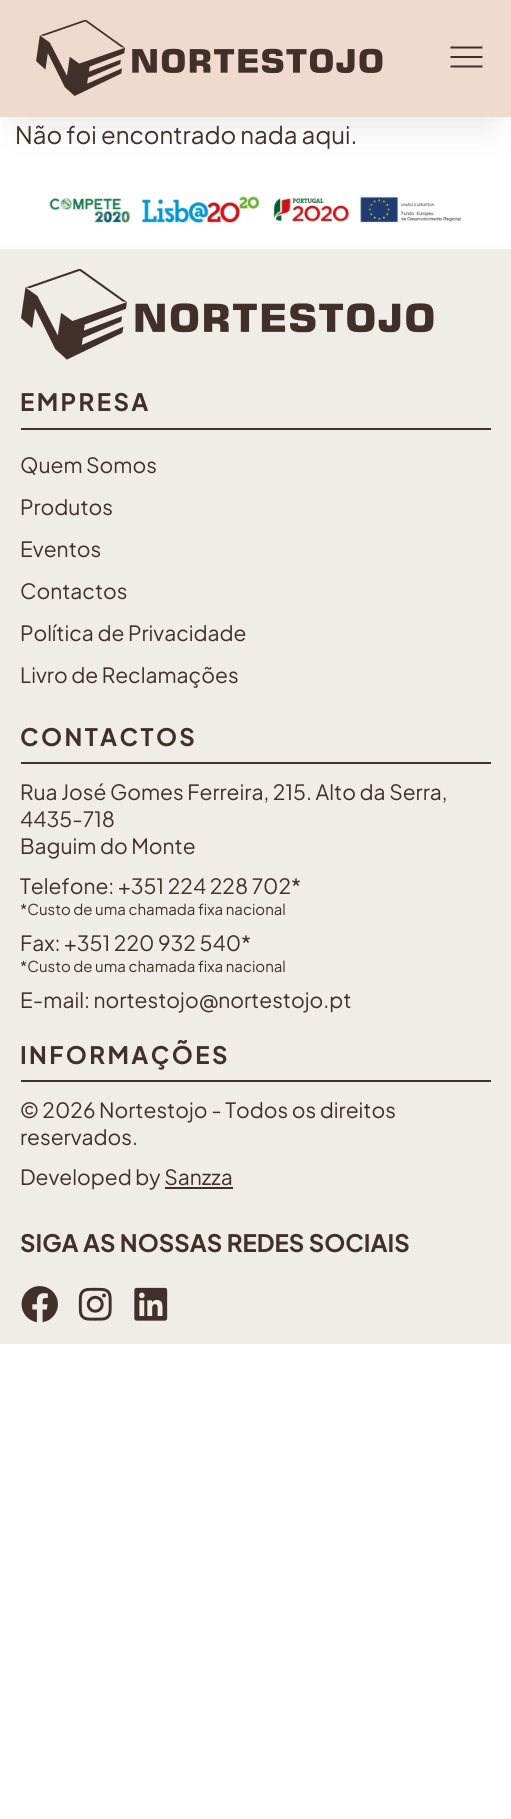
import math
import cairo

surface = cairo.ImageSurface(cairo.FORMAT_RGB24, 511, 1819)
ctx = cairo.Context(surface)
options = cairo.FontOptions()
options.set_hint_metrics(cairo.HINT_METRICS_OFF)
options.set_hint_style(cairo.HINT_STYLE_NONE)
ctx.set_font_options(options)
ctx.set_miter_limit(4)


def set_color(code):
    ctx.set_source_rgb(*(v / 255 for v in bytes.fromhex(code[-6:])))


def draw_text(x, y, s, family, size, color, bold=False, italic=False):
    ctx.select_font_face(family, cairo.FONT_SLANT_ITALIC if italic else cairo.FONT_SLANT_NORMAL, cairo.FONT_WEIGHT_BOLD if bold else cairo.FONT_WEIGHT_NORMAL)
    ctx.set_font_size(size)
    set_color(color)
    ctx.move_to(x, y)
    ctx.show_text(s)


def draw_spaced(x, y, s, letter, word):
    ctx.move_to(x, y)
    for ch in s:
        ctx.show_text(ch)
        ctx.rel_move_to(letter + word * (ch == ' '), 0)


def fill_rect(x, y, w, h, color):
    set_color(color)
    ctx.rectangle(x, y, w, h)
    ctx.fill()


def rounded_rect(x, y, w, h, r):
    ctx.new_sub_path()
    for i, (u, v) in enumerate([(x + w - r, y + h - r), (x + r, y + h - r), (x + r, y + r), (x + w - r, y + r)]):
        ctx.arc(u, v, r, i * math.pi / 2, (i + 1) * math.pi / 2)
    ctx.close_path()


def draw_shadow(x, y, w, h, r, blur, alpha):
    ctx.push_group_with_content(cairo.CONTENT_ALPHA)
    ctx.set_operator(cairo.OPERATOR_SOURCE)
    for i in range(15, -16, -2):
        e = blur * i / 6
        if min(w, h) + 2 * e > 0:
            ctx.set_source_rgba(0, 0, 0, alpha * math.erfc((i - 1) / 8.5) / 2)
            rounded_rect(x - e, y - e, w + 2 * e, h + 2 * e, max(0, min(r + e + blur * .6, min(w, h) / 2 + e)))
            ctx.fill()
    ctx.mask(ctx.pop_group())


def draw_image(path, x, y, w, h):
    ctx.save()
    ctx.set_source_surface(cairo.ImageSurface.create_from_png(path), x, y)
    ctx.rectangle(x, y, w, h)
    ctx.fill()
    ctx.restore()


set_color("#ffffff")
ctx.paint()
set_color("#000000")
draw_shadow(23, 45, 466, 72, 0, 22.5, 0.14)
fill_rect(0, 0, 511, 117, "#efdacd")
draw_image("assets/img1.png", 36, 20, 347, 76)
set_color("#412f29")
ctx.new_path()
ctx.move_to(450.5, 67.5)
ctx.line_to(450.5, 65.5)
ctx.line_to(482.5, 65.5)
ctx.line_to(482.5, 67.5)
ctx.close_path()
ctx.move_to(450.5, 58)
ctx.line_to(450.5, 56)
ctx.line_to(482.5, 56)
ctx.line_to(482.5, 58)
ctx.close_path()
ctx.move_to(450.5, 48.5)
ctx.line_to(450.5, 46.5)
ctx.line_to(482.5, 46.5)
ctx.line_to(482.5, 48.5)
ctx.close_path()
ctx.fill()
draw_text(15, 144, "Não foi encontrado nada aqui.", "Plus Jakarta Sans", 24, "#412f29")
draw_image("assets/img2.png", 49, 195, 413, 29)
fill_rect(0, 249, 511, 1095, "#f0ece8")
draw_image("assets/img3.png", 21, 269, 413, 91)
ctx.select_font_face("Plus Jakarta Sans", cairo.FONT_SLANT_NORMAL, cairo.FONT_WEIGHT_BOLD)
set_color("#412f29")
draw_spaced(20, 411, "EMPRESA", 2.4, 0)
fill_rect(21, 428, 470, 2, "#412f29")
draw_text(20, 473, "Quem Somos", "Plus Jakarta Sans", 21, "#412f29")
draw_text(20, 515, "Produtos", "Plus Jakarta Sans", 21, "#412f29")
draw_text(20, 557, "Eventos", "Plus Jakarta Sans", 21, "#412f29")
draw_text(20, 599, "Contactos", "Plus Jakarta Sans", 21, "#412f29")
draw_text(20, 641, "Política de Privacidade", "Plus Jakarta Sans", 21, "#412f29")
draw_text(20, 683, "Livro de Reclamações", "Plus Jakarta Sans", 21, "#412f29")
ctx.select_font_face("Plus Jakarta Sans", cairo.FONT_SLANT_NORMAL, cairo.FONT_WEIGHT_BOLD)
ctx.set_font_size(24)
draw_spaced(20, 746, "CONTACTOS", 2.4, 0)
fill_rect(21, 762, 470, 2, "#412f29")
draw_text(20, 800, "Rua José Gomes Ferreira, 215. Alto da Serra,", "Plus Jakarta Sans", 21, "#412f29")
draw_text(20, 827, "4435-718", "Plus Jakarta Sans", 21, "#412f29")
draw_text(20, 854, "Baguim do Monte", "Plus Jakarta Sans", 21, "#412f29")
draw_text(20, 894, "Telefone: +351 224 228 702*", "Plus Jakarta Sans", 21, "#412f29")
draw_text(20, 915, "*Custo de uma chamada fixa nacional", "Plus Jakarta Sans", 15, "#412f29")
draw_text(20, 951, "Fax: +351 220 932 540*", "Plus Jakarta Sans", 21, "#412f29")
draw_text(20, 972, "*Custo de uma chamada fixa nacional", "Plus Jakarta Sans", 15, "#412f29")
draw_text(20, 1008, "E-mail: nortestojo@nortestojo.pt", "Plus Jakarta Sans", 21, "#412f29")
ctx.select_font_face("Plus Jakarta Sans", cairo.FONT_SLANT_NORMAL, cairo.FONT_WEIGHT_BOLD)
ctx.set_font_size(24)
draw_spaced(20, 1064, "INFORMAÇÕES", 2.4, 0)
fill_rect(21, 1080, 470, 2, "#412f29")
draw_text(20, 1118, "© 2026 Nortestojo - Todos os direitos", "Plus Jakarta Sans", 21, "#412f29")
draw_text(20, 1145, "reservados.", "Plus Jakarta Sans", 21, "#412f29")
draw_text(20, 1185, "Developed by Sanzza", "Plus Jakarta Sans", 21, "#412f29")
fill_rect(165, 1187, 68, 2, "#412f29")
draw_text(20, 1252, "SIGA AS NOSSAS REDES SOCIAIS", "Plus Jakarta Sans", 24, "#412f29", bold=True)
draw_image("assets/img4.png", 21, 1286, 37, 37)
draw_image("assets/img5.png", 78, 1287, 34, 34)
draw_image("assets/img6.png", 134, 1287, 34, 34)
surface.write_to_png("output.png")
